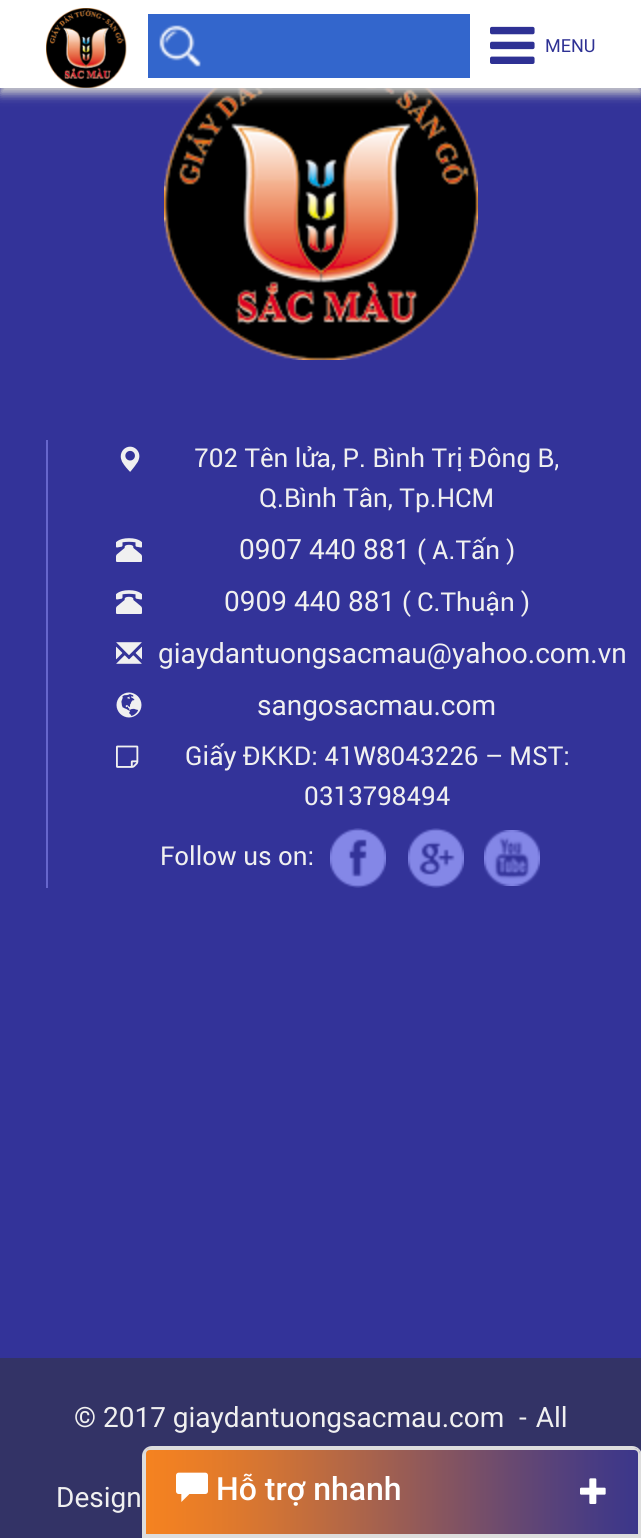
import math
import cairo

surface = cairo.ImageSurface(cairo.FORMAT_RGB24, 641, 1538)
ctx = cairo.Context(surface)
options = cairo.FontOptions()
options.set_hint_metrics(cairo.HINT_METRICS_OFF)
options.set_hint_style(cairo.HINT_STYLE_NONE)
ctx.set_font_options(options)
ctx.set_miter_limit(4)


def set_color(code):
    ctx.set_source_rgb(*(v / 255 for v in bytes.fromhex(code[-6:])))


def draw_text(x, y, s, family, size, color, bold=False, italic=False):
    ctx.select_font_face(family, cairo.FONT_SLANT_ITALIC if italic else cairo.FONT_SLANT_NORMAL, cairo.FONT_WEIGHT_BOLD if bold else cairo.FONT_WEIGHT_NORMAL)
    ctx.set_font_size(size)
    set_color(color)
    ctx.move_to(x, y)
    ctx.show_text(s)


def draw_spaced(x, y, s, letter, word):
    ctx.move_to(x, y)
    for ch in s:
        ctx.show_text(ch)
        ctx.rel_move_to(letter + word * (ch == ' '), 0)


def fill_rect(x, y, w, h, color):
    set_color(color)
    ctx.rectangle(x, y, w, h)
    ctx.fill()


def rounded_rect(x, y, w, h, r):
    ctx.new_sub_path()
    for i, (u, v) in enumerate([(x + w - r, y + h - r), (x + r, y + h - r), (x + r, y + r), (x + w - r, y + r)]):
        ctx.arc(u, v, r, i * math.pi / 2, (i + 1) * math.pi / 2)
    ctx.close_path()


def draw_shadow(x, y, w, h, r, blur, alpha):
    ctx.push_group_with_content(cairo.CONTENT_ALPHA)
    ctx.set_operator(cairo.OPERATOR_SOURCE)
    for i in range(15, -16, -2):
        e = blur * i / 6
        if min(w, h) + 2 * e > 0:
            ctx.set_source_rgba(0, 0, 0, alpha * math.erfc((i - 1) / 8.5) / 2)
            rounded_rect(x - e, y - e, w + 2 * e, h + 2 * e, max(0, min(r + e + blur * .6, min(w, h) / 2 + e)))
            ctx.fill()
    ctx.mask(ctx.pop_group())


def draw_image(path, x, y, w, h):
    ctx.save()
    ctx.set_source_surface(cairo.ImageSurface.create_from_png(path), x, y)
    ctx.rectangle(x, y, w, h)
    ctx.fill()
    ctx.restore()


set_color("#333399")
ctx.paint()
draw_image("assets/img4.png", 164, 88, 314, 272)
set_color("#cccccc")
draw_shadow(0, 6, 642, 88, 0, 5, 1)
fill_rect(0, 0, 641, 88, "#ffffff")
draw_image("assets/img1.png", 46, 8, 81, 80)
fill_rect(148, 14, 322, 64, "#3366cc")
draw_image("assets/img2.png", 159, 25, 42, 42)
draw_image("assets/img3.png", 490, 26, 45, 38)
draw_text(545, 52, "MENU", "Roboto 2", 18, "#2e3194")
fill_rect(46, 440, 2, 448, "#6666cc")
draw_image("assets/img5.png", 120, 446, 20, 26)
draw_text(194, 467, "702 Tên lửa, P. Bình Trị Đông B,", "Roboto", 26, "#f0f0f0")
draw_text(259, 507, "Q.Bình Tân, Tp.HCM", "Roboto", 26, "#f0f0f0")
draw_image("assets/img6.png", 116, 538, 26, 24)
draw_text(239, 559, "0907 440 881", "Roboto 2", 28, "#f0f0f0")
draw_text(417, 559, "( A.Tấn )", "Roboto", 26, "#f0f0f0")
draw_image("assets/img6.png", 116, 590, 26, 24)
draw_text(224, 611, "0909 440 881", "Roboto 2", 28, "#f0f0f0")
draw_text(402, 611, "( C.Thuận )", "Roboto", 26, "#f0f0f0")
draw_image("assets/img7.png", 116, 642, 26, 22)
draw_text(158, 663, "giaydantuongsacmau@yahoo.com.vn", "Roboto 2", 28, "#f0f0f0")
draw_image("assets/img8.png", 116, 692, 26, 26)
draw_text(257, 715, "sangosacmau.com", "Roboto 2", 28, "#f0f0f0")
draw_image("assets/img9.png", 116, 745, 23, 23)
draw_text(185, 765, "Giấy ĐKKD: 41W8043226 – MST:", "Roboto", 26, "#f0f0f0")
draw_text(304, 805, "0313798494", "Roboto", 26, "#f0f0f0")
draw_text(160, 865, "Follow us on:", "Roboto", 26, "#f0f0f0")
draw_image("assets/img10.png", 330, 828, 56, 60)
draw_image("assets/img11.png", 408, 828, 56, 60)
draw_image("assets/img12.png", 484, 830, 56, 56)
fill_rect(0, 1358, 641, 180, "#333366")
draw_text(74, 1427, "© 2017 giaydantuongsacmau.com", "Roboto 2", 28, "#f0f0f0")
draw_spaced(519, 1427, "- All", 0, 2)
draw_spaced(56, 1507, "Design", 0, 1)
ctx.new_path()
ctx.move_to(152, 1447)
ctx.line_to(632, 1447)
ctx.curve_to(637, 1447, 641, 1451, 641, 1456)
ctx.line_to(641, 1537)
ctx.line_to(143, 1537)
ctx.line_to(143, 1456)
ctx.curve_to(143, 1451, 147, 1447, 152, 1447)
ctx.close_path()
set_color("#dddddd")
ctx.stroke()
draw_image("assets/img13.png", 146, 1448, 494, 86)
ctx.new_path()
ctx.move_to(150, 1449)
ctx.line_to(634, 1449)
ctx.curve_to(637, 1449, 639, 1451, 639, 1454)
ctx.line_to(639, 1535)
ctx.line_to(145, 1535)
ctx.line_to(145, 1454)
ctx.curve_to(145, 1451, 147, 1449, 150, 1449)
ctx.close_path()
ctx.stroke()
draw_image("assets/img14.png", 176, 1472, 32, 30)
draw_text(216, 1500, "Hỗ trợ nhanh", "Roboto Medium", 32, "#ffffff")
draw_image("assets/img15.png", 580, 1478, 26, 26)
surface.write_to_png("output.png")
